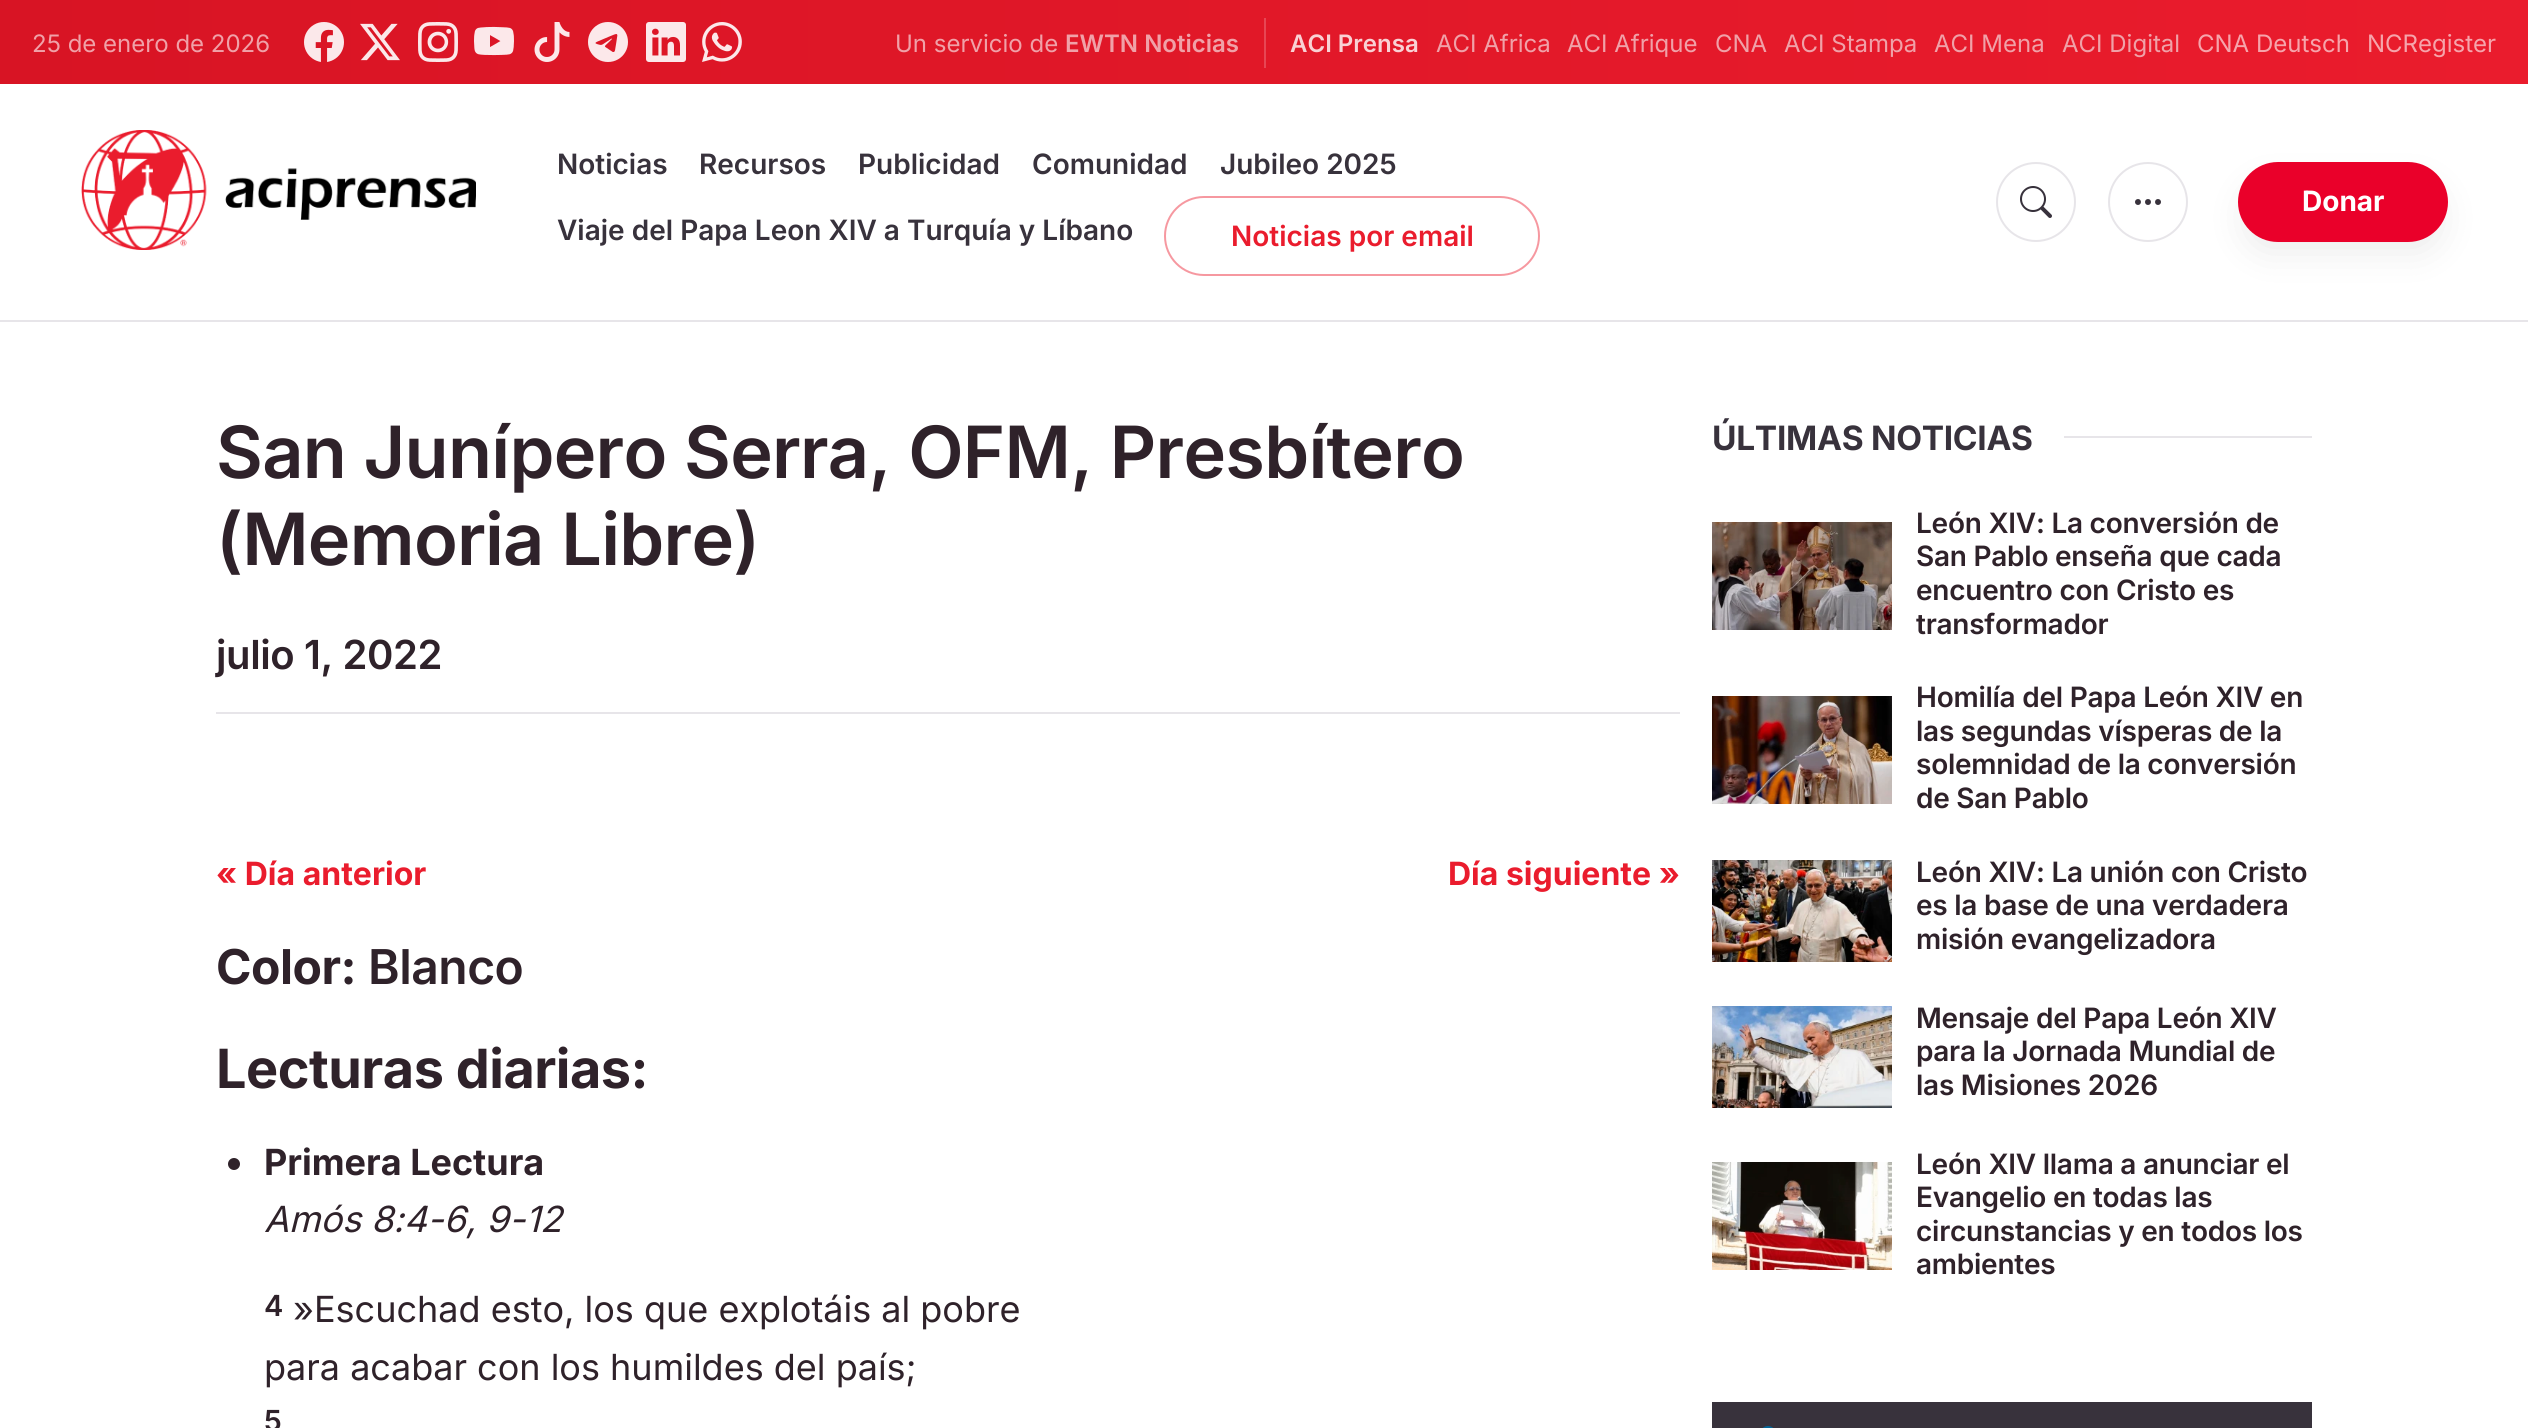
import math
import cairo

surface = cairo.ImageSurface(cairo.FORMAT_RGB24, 2528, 1428)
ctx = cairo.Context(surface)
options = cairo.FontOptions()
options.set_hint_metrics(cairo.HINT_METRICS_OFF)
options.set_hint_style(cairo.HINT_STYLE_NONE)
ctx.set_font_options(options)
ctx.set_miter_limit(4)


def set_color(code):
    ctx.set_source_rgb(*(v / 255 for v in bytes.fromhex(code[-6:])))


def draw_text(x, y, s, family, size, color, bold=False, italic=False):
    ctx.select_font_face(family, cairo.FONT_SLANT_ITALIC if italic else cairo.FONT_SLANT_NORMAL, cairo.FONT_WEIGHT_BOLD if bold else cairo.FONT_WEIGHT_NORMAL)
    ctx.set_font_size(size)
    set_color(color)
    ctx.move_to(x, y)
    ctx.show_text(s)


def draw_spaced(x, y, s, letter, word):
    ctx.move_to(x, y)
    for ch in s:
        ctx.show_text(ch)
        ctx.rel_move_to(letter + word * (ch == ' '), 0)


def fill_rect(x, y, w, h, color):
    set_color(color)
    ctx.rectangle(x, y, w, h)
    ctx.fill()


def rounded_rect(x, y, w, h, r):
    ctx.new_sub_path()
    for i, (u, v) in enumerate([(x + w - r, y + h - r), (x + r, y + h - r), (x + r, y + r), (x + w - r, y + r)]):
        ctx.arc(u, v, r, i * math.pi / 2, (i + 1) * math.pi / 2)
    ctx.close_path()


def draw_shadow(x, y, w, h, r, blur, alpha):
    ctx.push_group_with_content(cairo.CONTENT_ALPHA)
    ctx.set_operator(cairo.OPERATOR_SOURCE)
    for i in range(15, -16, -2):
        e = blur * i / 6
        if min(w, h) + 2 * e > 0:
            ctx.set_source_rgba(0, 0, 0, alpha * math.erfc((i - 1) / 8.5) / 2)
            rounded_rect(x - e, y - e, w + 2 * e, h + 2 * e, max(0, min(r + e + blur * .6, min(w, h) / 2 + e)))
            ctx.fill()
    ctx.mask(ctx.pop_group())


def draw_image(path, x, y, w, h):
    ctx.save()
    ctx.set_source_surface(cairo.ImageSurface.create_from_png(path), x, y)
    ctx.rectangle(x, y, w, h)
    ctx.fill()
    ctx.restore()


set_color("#ffffff")
ctx.paint()
fill_rect(0, 320, 2528, 2, "#e7e5e9")
gradient = cairo.LinearGradient(2528, 42, 0, 42)
gradient.add_color_stop_rgba(0, 0.918, 0.11, 0.176, 1)
gradient.add_color_stop_rgba(1, 0.847, 0.078, 0.141, 1)
ctx.set_source(gradient)
ctx.rectangle(0, 0, 2528, 84)
ctx.fill()
draw_text(32, 52, "25 de enero de 2026", "Inter", 24, "#f0a1a8")
draw_image("assets/img1.png", 304, 22, 40, 40)
draw_image("assets/img2.png", 360, 23, 40, 38)
draw_image("assets/img3.png", 418, 22, 40, 40)
draw_image("assets/img4.png", 474, 26, 40, 30)
draw_image("assets/img5.png", 534, 22, 36, 40)
draw_image("assets/img6.png", 588, 22, 40, 40)
draw_image("assets/img7.png", 646, 22, 40, 40)
draw_image("assets/img8.png", 702, 22, 40, 40)
draw_text(895, 52, "Un servicio de", "Inter", 24, "#f0a1a8")
draw_text(1065, 52, "EWTN Noticias", "Inter SemiBold", 24, "#f0a1a8")
fill_rect(1264, 18, 2, 50, "#e74654")
draw_text(1290, 52, "ACI Prensa", "Inter SemiBold", 24, "#f9d1d4")
draw_text(1436, 52, "ACI Africa", "Inter", 24, "#f0a1a8")
draw_text(1567, 52, "ACI Afrique", "Inter", 24, "#f0a1a8")
draw_text(1715, 52, "CNA", "Inter", 24, "#f0a1a8")
draw_text(1784, 52, "ACI Stampa", "Inter", 24, "#f0a1a8")
draw_text(1934, 52, "ACI Mena", "Inter", 24, "#f0a1a8")
draw_text(2062, 52, "ACI Digital", "Inter", 24, "#f0a1a8")
draw_text(2197, 52, "CNA Deutsch", "Inter", 24, "#f6a4ab")
draw_text(2367, 52, "NCRegister", "Inter", 24, "#f6a4ab")
draw_image("assets/img9.png", 81, 130, 395, 120)
draw_text(557, 174, "Noticias", "Inter SemiBold", 28, "#38323c")
draw_text(699, 174, "Recursos", "Inter SemiBold", 28, "#38323c")
draw_text(858, 174, "Publicidad", "Inter SemiBold", 28, "#38323c")
draw_text(1032, 174, "Comunidad", "Inter SemiBold", 28, "#38323c")
draw_text(1220, 174, "Jubileo 2025", "Inter SemiBold", 28, "#38323c")
draw_text(557, 240, "Viaje del Papa Leon XIV a Turquía y Líbano", "Inter SemiBold", 28, "#38323c")
rounded_rect(1165, 197, 374, 78, 39)
set_color("#f698a0")
ctx.stroke()
draw_text(1231, 246, "Noticias por email", "Inter SemiBold", 28, "#ea1c2d")
ctx.new_path()
ctx.arc(2036, 202, 39, 0, 2 * math.pi)
set_color("#e7e5e9")
ctx.stroke()
draw_image("assets/img10.png", 2020, 186, 32, 32)
ctx.arc(2148, 202, 39, 0, 2 * math.pi)
ctx.stroke()
draw_image("assets/img11.png", 2135, 199, 26, 6)
set_color("#000000")
draw_shadow(2250, 190, 186, 56, 28, 20, 0.1)
set_color("#ea002a")
rounded_rect(2238, 162, 210, 80, 40)
ctx.fill()
draw_text(2302, 211, "Donar", "Inter", 28, "#ffffff", bold=True)
ctx.select_font_face("Inter SemiBold")
ctx.set_font_size(72)
set_color("#2f222a")
draw_spaced(216, 478, "San Junípero Serra, OFM, Presbítero", -0.7, 0)
draw_spaced(216, 565, "(Memoria Libre)", -0.7, 0)
ctx.set_font_size(40)
draw_spaced(216, 669, "julio 1, 2022", -0.4, 0)
fill_rect(216, 712, 1464, 2, "#e7e5e9")
draw_text(216, 885, "« Día anterior", "Inter", 32, "#ea1c2d", bold=True)
draw_text(1448, 885, "Día siguiente »", "Inter", 32, "#ea1c2d", bold=True)
ctx.set_font_size(48)
set_color("#2f222a")
draw_spaced(216, 984, "Color:", -0.5, 0)
ctx.select_font_face("Inter SemiBold")
draw_spaced(368, 984, "Blanco", -0.5, 0)
ctx.select_font_face("Inter", cairo.FONT_SLANT_NORMAL, cairo.FONT_WEIGHT_BOLD)
ctx.set_font_size(54)
draw_spaced(216, 1088, "Lecturas diarias:", -0.5, 0)
ctx.new_path()
ctx.arc(234, 1164, 6, 0, 2 * math.pi)
ctx.fill()
draw_text(264, 1175, "Primera Lectura", "Inter", 36, "#2f222a", bold=True)
draw_text(264, 1232, "Amós 8:4-6, 9-12", "Inter", 36, "#2f222a", italic=True)
draw_text(293, 1322, "»Escuchad esto, los que explotáis al pobre", "Inter", 36, "#2f222a")
draw_text(264, 1380, "para acabar con los humildes del país;", "Inter", 36, "#2f222a")
draw_text(264, 1316, "4", "Inter SemiBold", 29, "#2f222a")
draw_text(264, 1431, "5", "Inter SemiBold", 29, "#2f222a")
ctx.select_font_face("Inter", cairo.FONT_SLANT_NORMAL, cairo.FONT_WEIGHT_BOLD)
ctx.set_font_size(33.5)
set_color("#38323c")
draw_spaced(1712, 450, "ÚLTIMAS NOTICIAS", -0.3, 0)
fill_rect(2064, 436, 248, 2, "#e7e5e9")
draw_image("assets/img12.png", 1712, 522, 180, 108)
ctx.select_font_face("Inter SemiBold")
ctx.set_font_size(28)
set_color("#2f222a")
draw_spaced(1916, 533, "León XIV: La conversión de", -0.25, 0)
draw_spaced(1916, 566, "San Pablo enseña que cada", -0.25, 0)
draw_spaced(1916, 600, "encuentro con Cristo es", -0.25, 0)
draw_spaced(1916, 634, "transformador", -0.25, 0)
draw_image("assets/img13.png", 1712, 696, 180, 108)
draw_spaced(1916, 707, "Homilía del Papa León XIV en", -0.25, 0)
draw_spaced(1916, 741, "las segundas vísperas de la", -0.25, 0)
draw_spaced(1916, 774, "solemnidad de la conversión", -0.25, 0)
draw_spaced(1916, 808, "de San Pablo", -0.25, 0)
draw_image("assets/img14.png", 1712, 860, 180, 102)
draw_spaced(1916, 882, "León XIV: La unión con Cristo", -0.25, 0)
draw_spaced(1916, 915, "es la base de una verdadera", -0.25, 0)
draw_spaced(1916, 949, "misión evangelizadora", -0.25, 0)
draw_image("assets/img15.png", 1712, 1006, 180, 102)
draw_spaced(1916, 1028, "Mensaje del Papa León XIV", -0.25, 0)
draw_spaced(1916, 1061, "para la Jornada Mundial de", -0.25, 0)
draw_spaced(1916, 1095, "las Misiones 2026", -0.25, 0)
draw_image("assets/img16.png", 1712, 1162, 180, 108)
draw_spaced(1916, 1174, "León XIV llama a anunciar el", -0.25, 0)
draw_spaced(1916, 1207, "Evangelio en todas las", -0.25, 0)
draw_spaced(1916, 1241, "circunstancias y en todos los", -0.25, 0)
draw_spaced(1916, 1274, "ambientes", -0.25, 0)
fill_rect(1712, 1402, 600, 26, "#38323c")
set_color("#036598")
rounded_rect(1760, 1426, 16, 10, 8)
ctx.fill()
surface.write_to_png("output.png")
